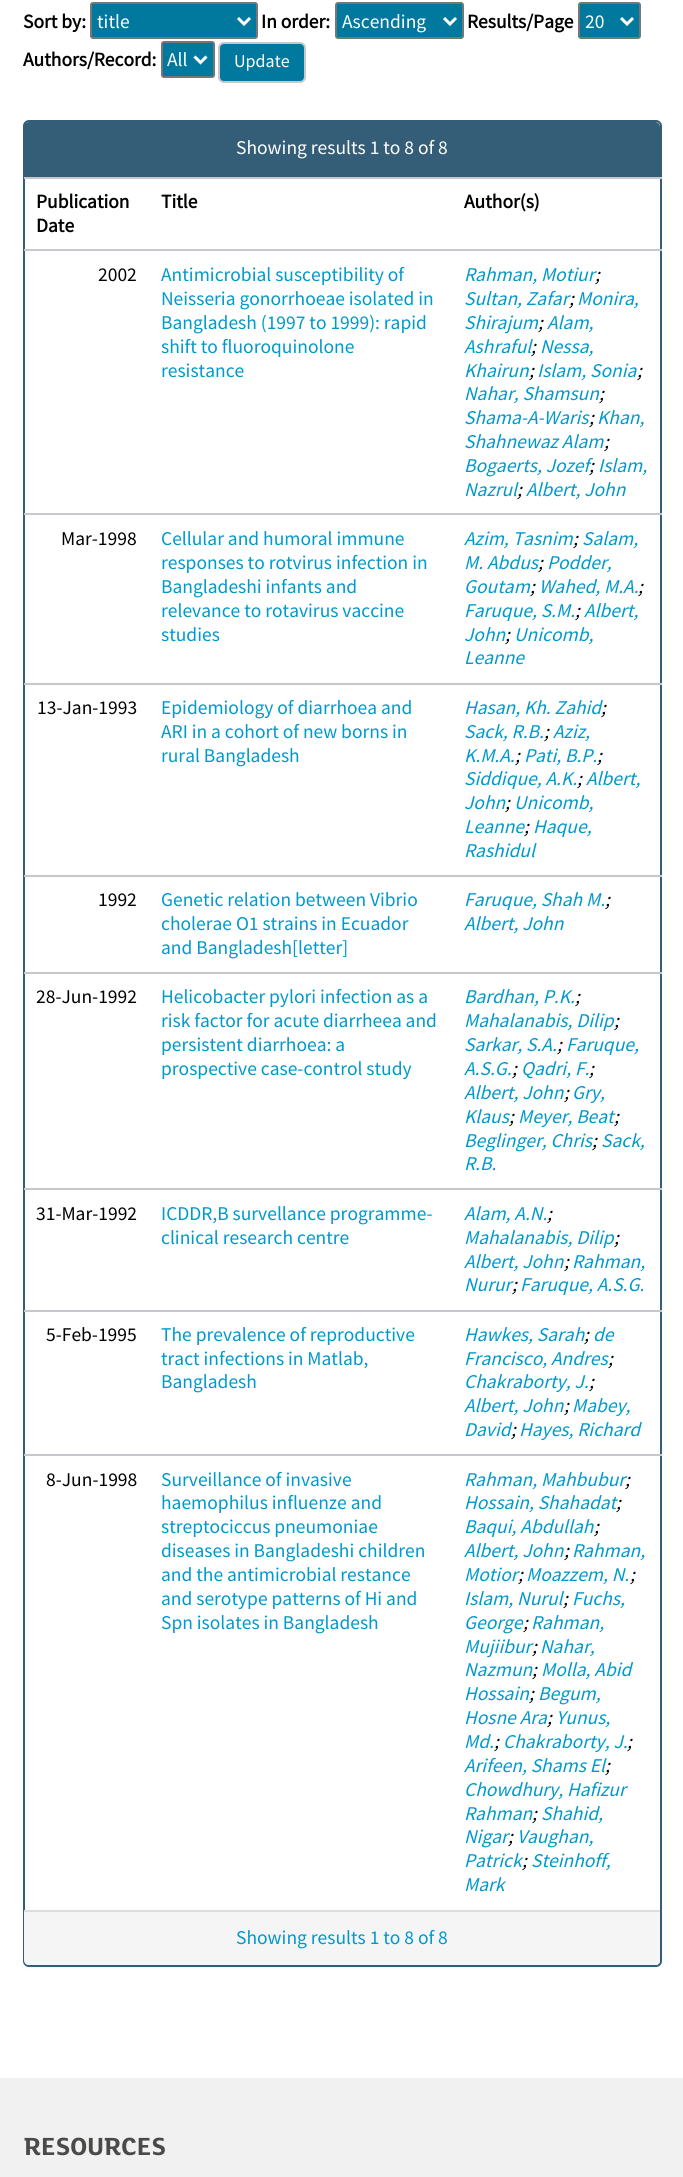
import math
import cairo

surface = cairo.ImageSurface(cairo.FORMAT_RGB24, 683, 2177)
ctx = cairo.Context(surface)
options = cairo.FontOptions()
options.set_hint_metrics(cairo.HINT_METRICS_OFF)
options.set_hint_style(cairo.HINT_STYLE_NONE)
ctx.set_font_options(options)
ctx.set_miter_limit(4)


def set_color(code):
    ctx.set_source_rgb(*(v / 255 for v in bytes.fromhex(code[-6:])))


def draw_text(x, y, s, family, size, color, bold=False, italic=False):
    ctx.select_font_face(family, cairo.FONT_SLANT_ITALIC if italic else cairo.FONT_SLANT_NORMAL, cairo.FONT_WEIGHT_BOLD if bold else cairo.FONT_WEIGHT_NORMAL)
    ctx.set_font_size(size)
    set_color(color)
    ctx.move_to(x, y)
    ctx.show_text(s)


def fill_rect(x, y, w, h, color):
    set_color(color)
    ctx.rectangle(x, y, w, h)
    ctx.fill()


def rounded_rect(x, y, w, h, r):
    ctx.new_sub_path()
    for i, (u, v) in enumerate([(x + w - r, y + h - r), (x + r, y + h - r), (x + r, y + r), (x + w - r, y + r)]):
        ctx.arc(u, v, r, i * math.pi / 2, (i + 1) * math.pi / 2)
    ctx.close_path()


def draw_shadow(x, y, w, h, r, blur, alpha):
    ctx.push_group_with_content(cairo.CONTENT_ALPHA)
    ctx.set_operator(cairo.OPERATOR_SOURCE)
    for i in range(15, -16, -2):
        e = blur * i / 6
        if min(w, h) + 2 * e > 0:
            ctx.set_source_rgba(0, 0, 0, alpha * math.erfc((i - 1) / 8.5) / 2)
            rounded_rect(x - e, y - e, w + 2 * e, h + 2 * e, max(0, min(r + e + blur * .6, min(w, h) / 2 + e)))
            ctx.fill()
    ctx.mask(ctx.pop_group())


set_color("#ffffff")
ctx.paint()
draw_text(23, 28, "Sort by:", "Source Sans Pro", 19.5, "#000000", bold=True)
set_color("#01799e")
rounded_rect(91, 3, 166, 35, 2)
ctx.fill_preserve()
set_color("#767676")
ctx.stroke()
ctx.new_path()
ctx.move_to(238, 18)
ctx.line_to(244, 24)
ctx.line_to(250, 18)
set_color("#ffffff")
ctx.set_line_width(3)
ctx.stroke()
draw_text(97, 28, "title", "Source Sans Pro", 19.5, "#ffffff")
draw_text(261, 28, "In order:", "Source Sans Pro", 19.5, "#000000", bold=True)
set_color("#01799e")
rounded_rect(336, 3, 127, 35, 2)
ctx.fill_preserve()
set_color("#767676")
ctx.set_line_width(2)
ctx.stroke()
ctx.new_path()
ctx.move_to(444, 18)
ctx.line_to(450, 24)
ctx.line_to(456, 18)
set_color("#ffffff")
ctx.set_line_width(3)
ctx.stroke()
draw_text(342, 28, "Ascending", "Source Sans Pro", 19.5, "#ffffff")
draw_text(467, 28, "Results/Page", "Source Sans Pro", 19.5, "#000000", bold=True)
set_color("#01799e")
rounded_rect(579, 3, 61, 35, 2)
ctx.fill_preserve()
set_color("#767676")
ctx.set_line_width(2)
ctx.stroke()
ctx.new_path()
ctx.move_to(621, 18)
ctx.line_to(627, 24)
ctx.line_to(633, 18)
set_color("#ffffff")
ctx.set_line_width(3)
ctx.stroke()
draw_text(585, 28, "20", "Source Sans Pro", 19.5, "#ffffff")
draw_text(23, 66, "Authors/Record:", "Source Sans Pro", 19.5, "#000000", bold=True)
set_color("#01799e")
rounded_rect(162, 42, 52, 35, 2)
ctx.fill_preserve()
set_color("#767676")
ctx.set_line_width(2)
ctx.stroke()
ctx.new_path()
ctx.move_to(194.5, 56.5)
ctx.line_to(200.5, 62.5)
ctx.line_to(206.5, 56.5)
set_color("#ffffff")
ctx.set_line_width(3)
ctx.stroke()
draw_text(167, 66, "All", "Source Sans Pro", 19.5, "#ffffff")
set_color("#01799e")
rounded_rect(219, 43, 86, 39, 5)
ctx.fill_preserve()
set_color("#c7c7cc")
ctx.set_line_width(2)
ctx.stroke()
draw_text(234, 67, "Update", "Source Sans Pro", 18, "#ffffff")
set_color("#000000")
draw_shadow(23, 122, 639, 1846, 6, 1, 0.05)
set_color("#ffffff")
rounded_rect(24, 121, 637, 1845, 5)
ctx.fill_preserve()
set_color("#345e77")
ctx.stroke()
ctx.new_path()
ctx.move_to(29, 122)
ctx.line_to(655, 122)
ctx.curve_to(658, 122, 660, 124, 660, 127)
ctx.line_to(660, 177)
ctx.line_to(24, 177)
ctx.line_to(24, 127)
ctx.curve_to(24, 124, 26, 122, 29, 122)
ctx.close_path()
ctx.fill()
draw_text(236, 154, "Showing results 1 to 8 of 8", "Source Sans Pro", 19.5, "#ffffff")
draw_text(36, 208, "Publication", "Source Sans Pro", 19.5, "#000000", bold=True)
draw_text(36, 232, "Date", "Source Sans Pro", 19.5, "#000000", bold=True)
draw_text(161, 208, "Title", "Source Sans Pro", 19.5, "#000000", bold=True)
fill_rect(24, 177, 638, 2, "#c7c7cc")
draw_text(464, 208, "Author(s)", "Source Sans Pro", 19.5, "#000000", bold=True)
draw_text(98, 281, "2002", "Source Sans Pro", 19.5, "#000000")
draw_text(161, 281, "Antimicrobial susceptibility of", "Source Sans Pro", 19.5, "#0099cc")
draw_text(161, 305, "Neisseria gonorrhoeae isolated in", "Source Sans Pro", 19.5, "#0099cc")
draw_text(161, 329, "Bangladesh (1997 to 1999): rapid", "Source Sans Pro", 19.5, "#0099cc")
draw_text(161, 353, "shift to fluoroquinolone", "Source Sans Pro", 19.5, "#0099cc")
draw_text(161, 377, "resistance", "Source Sans Pro", 19.5, "#0099cc")
fill_rect(24, 249, 638, 2, "#c7c7cc")
draw_text(464, 281, "Rahman, Motiur", "Source Sans Pro", 19.5, "#0099cc", italic=True)
draw_text(595, 281, ";", "Source Sans Pro", 19.5, "#000000", italic=True)
draw_text(464, 305, "Sultan, Zafar", "Source Sans Pro", 19.5, "#0099cc", italic=True)
draw_text(577, 305, "Monira,", "Source Sans Pro", 19.5, "#0099cc", italic=True)
draw_text(569, 305, ";", "Source Sans Pro", 19.5, "#000000", italic=True)
draw_text(464, 329, "Shirajum", "Source Sans Pro", 19.5, "#0099cc", italic=True)
draw_text(538, 329, ";", "Source Sans Pro", 19.5, "#000000", italic=True)
draw_text(547, 329, "Alam,", "Source Sans Pro", 19.5, "#0099cc", italic=True)
draw_text(464, 353, "Ashraful", "Source Sans Pro", 19.5, "#0099cc", italic=True)
draw_text(531, 353, ";", "Source Sans Pro", 19.5, "#000000", italic=True)
draw_text(540, 353, "Nessa,", "Source Sans Pro", 19.5, "#0099cc", italic=True)
draw_text(464, 377, "Khairun", "Source Sans Pro", 19.5, "#0099cc", italic=True)
draw_text(529, 377, ";", "Source Sans Pro", 19.5, "#000000", italic=True)
draw_text(537, 377, "Islam, Sonia", "Source Sans Pro", 19.5, "#0099cc", italic=True)
draw_text(637, 377, ";", "Source Sans Pro", 19.5, "#000000", italic=True)
draw_text(464, 400, "Nahar, Shamsun", "Source Sans Pro", 19.5, "#0099cc", italic=True)
draw_text(599, 400, ";", "Source Sans Pro", 19.5, "#000000", italic=True)
draw_text(464, 424, "Shama-A-Waris", "Source Sans Pro", 19.5, "#0099cc", italic=True)
draw_text(589, 424, ";", "Source Sans Pro", 19.5, "#000000", italic=True)
draw_text(597, 424, "Khan,", "Source Sans Pro", 19.5, "#0099cc", italic=True)
draw_text(464, 448, "Shahnewaz Alam", "Source Sans Pro", 19.5, "#0099cc", italic=True)
draw_text(604, 448, ";", "Source Sans Pro", 19.5, "#000000", italic=True)
draw_text(464, 472, "Bogaerts, Jozef", "Source Sans Pro", 19.5, "#0099cc", italic=True)
draw_text(598, 472, "Islam,", "Source Sans Pro", 19.5, "#0099cc", italic=True)
draw_text(589, 472, ";", "Source Sans Pro", 19.5, "#000000", italic=True)
draw_text(464, 496, "Nazrul", "Source Sans Pro", 19.5, "#0099cc", italic=True)
draw_text(517, 496, ";", "Source Sans Pro", 19.5, "#000000", italic=True)
draw_text(526, 496, "Albert, John", "Source Sans Pro", 19.5, "#0099cc", italic=True)
draw_text(61, 545, "Mar-1998", "Source Sans Pro", 19.5, "#000000")
draw_text(161, 545, "Cellular and humoral immune", "Source Sans Pro", 19.5, "#0099cc")
draw_text(161, 569, "responses to rotvirus infection in", "Source Sans Pro", 19.5, "#0099cc")
draw_text(161, 593, "Bangladeshi infants and", "Source Sans Pro", 19.5, "#0099cc")
draw_text(161, 617, "relevance to rotavirus vaccine", "Source Sans Pro", 19.5, "#0099cc")
draw_text(161, 641, "studies", "Source Sans Pro", 19.5, "#0099cc")
fill_rect(24, 513, 638, 2, "#c7c7cc")
draw_text(464, 545, "Azim, Tasnim", "Source Sans Pro", 19.5, "#0099cc", italic=True)
draw_text(573, 545, ";", "Source Sans Pro", 19.5, "#000000", italic=True)
draw_text(582, 545, "Salam,", "Source Sans Pro", 19.5, "#0099cc", italic=True)
draw_text(464, 569, "M. Abdus", "Source Sans Pro", 19.5, "#0099cc", italic=True)
draw_text(538, 569, ";", "Source Sans Pro", 19.5, "#000000", italic=True)
draw_text(547, 569, "Podder,", "Source Sans Pro", 19.5, "#0099cc", italic=True)
draw_text(464, 593, "Goutam", "Source Sans Pro", 19.5, "#0099cc", italic=True)
draw_text(530, 593, ";", "Source Sans Pro", 19.5, "#000000", italic=True)
draw_text(539, 593, "Wahed, M.A.", "Source Sans Pro", 19.5, "#0099cc", italic=True)
draw_text(638, 593, ";", "Source Sans Pro", 19.5, "#000000", italic=True)
draw_text(464, 617, "Faruque, S.M.", "Source Sans Pro", 19.5, "#0099cc", italic=True)
draw_text(575, 617, ";", "Source Sans Pro", 19.5, "#000000", italic=True)
draw_text(584, 617, "Albert,", "Source Sans Pro", 19.5, "#0099cc", italic=True)
draw_text(464, 641, "John", "Source Sans Pro", 19.5, "#0099cc", italic=True)
draw_text(505, 641, ";", "Source Sans Pro", 19.5, "#000000", italic=True)
draw_text(514, 641, "Unicomb,", "Source Sans Pro", 19.5, "#0099cc", italic=True)
draw_text(464, 664, "Leanne", "Source Sans Pro", 19.5, "#0099cc", italic=True)
draw_text(37, 714, "13-Jan-1993", "Source Sans Pro", 19.5, "#000000")
draw_text(161, 714, "Epidemiology of diarrhoea and", "Source Sans Pro", 19.5, "#0099cc")
draw_text(161, 738, "ARI in a cohort of new borns in", "Source Sans Pro", 19.5, "#0099cc")
draw_text(161, 762, "rural Bangladesh", "Source Sans Pro", 19.5, "#0099cc")
fill_rect(24, 683, 638, 2, "#c7c7cc")
draw_text(464, 714, "Hasan, Kh. Zahid", "Source Sans Pro", 19.5, "#0099cc", italic=True)
draw_text(601, 714, ";", "Source Sans Pro", 19.5, "#000000", italic=True)
draw_text(464, 738, "Sack, R.B.", "Source Sans Pro", 19.5, "#0099cc", italic=True)
draw_text(544, 738, ";", "Source Sans Pro", 19.5, "#000000", italic=True)
draw_text(553, 738, "Aziz,", "Source Sans Pro", 19.5, "#0099cc", italic=True)
draw_text(464, 762, "K.M.A.", "Source Sans Pro", 19.5, "#0099cc", italic=True)
draw_text(515, 762, ";", "Source Sans Pro", 19.5, "#000000", italic=True)
draw_text(524, 762, "Pati, B.P.", "Source Sans Pro", 19.5, "#0099cc", italic=True)
draw_text(597, 762, ";", "Source Sans Pro", 19.5, "#000000", italic=True)
draw_text(464, 785, "Siddique, A.K.", "Source Sans Pro", 19.5, "#0099cc", italic=True)
draw_text(577, 785, ";", "Source Sans Pro", 19.5, "#000000", italic=True)
draw_text(586, 785, "Albert,", "Source Sans Pro", 19.5, "#0099cc", italic=True)
draw_text(464, 809, "John", "Source Sans Pro", 19.5, "#0099cc", italic=True)
draw_text(505, 809, ";", "Source Sans Pro", 19.5, "#000000", italic=True)
draw_text(514, 809, "Unicomb,", "Source Sans Pro", 19.5, "#0099cc", italic=True)
draw_text(464, 833, "Leanne", "Source Sans Pro", 19.5, "#0099cc", italic=True)
draw_text(524, 833, ";", "Source Sans Pro", 19.5, "#000000", italic=True)
draw_text(533, 833, "Haque,", "Source Sans Pro", 19.5, "#0099cc", italic=True)
draw_text(464, 857, "Rashidul", "Source Sans Pro", 19.5, "#0099cc", italic=True)
draw_text(98, 906, "1992", "Source Sans Pro", 19.5, "#000000")
draw_text(161, 906, "Genetic relation between Vibrio", "Source Sans Pro", 19.5, "#0099cc")
draw_text(161, 930, "cholerae O1 strains in Ecuador", "Source Sans Pro", 19.5, "#0099cc")
draw_text(161, 954, "and Bangladesh[letter]", "Source Sans Pro", 19.5, "#0099cc")
fill_rect(24, 875, 638, 2, "#c7c7cc")
draw_text(464, 906, "Faruque, Shah M.", "Source Sans Pro", 19.5, "#0099cc", italic=True)
draw_text(605, 906, ";", "Source Sans Pro", 19.5, "#000000", italic=True)
draw_text(464, 930, "Albert, John", "Source Sans Pro", 19.5, "#0099cc", italic=True)
draw_text(36, 1003, "28-Jun-1992", "Source Sans Pro", 19.5, "#000000")
draw_text(161, 1003, "Helicobacter pylori infection as a", "Source Sans Pro", 19.5, "#0099cc")
draw_text(161, 1027, "risk factor for acute diarrheea and", "Source Sans Pro", 19.5, "#0099cc")
draw_text(161, 1051, "persistent diarrhoea: a", "Source Sans Pro", 19.5, "#0099cc")
draw_text(161, 1075, "prospective case-control study", "Source Sans Pro", 19.5, "#0099cc")
fill_rect(24, 972, 638, 2, "#c7c7cc")
draw_text(464, 1003, "Bardhan, P.K.", "Source Sans Pro", 19.5, "#0099cc", italic=True)
draw_text(575, 1003, ";", "Source Sans Pro", 19.5, "#000000", italic=True)
draw_text(464, 1027, "Mahalanabis, Dilip", "Source Sans Pro", 19.5, "#0099cc", italic=True)
draw_text(614, 1027, ";", "Source Sans Pro", 19.5, "#000000", italic=True)
draw_text(464, 1051, "Sarkar, S.A.", "Source Sans Pro", 19.5, "#0099cc", italic=True)
draw_text(557, 1051, ";", "Source Sans Pro", 19.5, "#000000", italic=True)
draw_text(566, 1051, "Faruque,", "Source Sans Pro", 19.5, "#0099cc", italic=True)
draw_text(464, 1075, "A.S.G.", "Source Sans Pro", 19.5, "#0099cc", italic=True)
draw_text(512, 1075, ";", "Source Sans Pro", 19.5, "#000000", italic=True)
draw_text(521, 1075, "Qadri, F.", "Source Sans Pro", 19.5, "#0099cc", italic=True)
draw_text(589, 1075, ";", "Source Sans Pro", 19.5, "#000000", italic=True)
draw_text(464, 1099, "Albert, John", "Source Sans Pro", 19.5, "#0099cc", italic=True)
draw_text(564, 1099, ";", "Source Sans Pro", 19.5, "#000000", italic=True)
draw_text(572, 1099, "Gry,", "Source Sans Pro", 19.5, "#0099cc", italic=True)
draw_text(464, 1123, "Klaus", "Source Sans Pro", 19.5, "#0099cc", italic=True)
draw_text(509, 1123, ";", "Source Sans Pro", 19.5, "#000000", italic=True)
draw_text(518, 1123, "Meyer, Beat", "Source Sans Pro", 19.5, "#0099cc", italic=True)
draw_text(614, 1123, ";", "Source Sans Pro", 19.5, "#000000", italic=True)
draw_text(464, 1147, "Beglinger, Chris", "Source Sans Pro", 19.5, "#0099cc", italic=True)
draw_text(592, 1147, ";", "Source Sans Pro", 19.5, "#000000", italic=True)
draw_text(601, 1147, "Sack,", "Source Sans Pro", 19.5, "#0099cc", italic=True)
draw_text(464, 1170, "R.B.", "Source Sans Pro", 19.5, "#0099cc", italic=True)
draw_text(36, 1220, "31-Mar-1992", "Source Sans Pro", 19.5, "#000000")
draw_text(161, 1220, "ICDDR,B survellance programme-", "Source Sans Pro", 19.5, "#0099cc")
draw_text(161, 1244, "clinical research centre", "Source Sans Pro", 19.5, "#0099cc")
fill_rect(24, 1188, 638, 2, "#c7c7cc")
draw_text(464, 1220, "Alam, A.N.", "Source Sans Pro", 19.5, "#0099cc", italic=True)
draw_text(547, 1220, ";", "Source Sans Pro", 19.5, "#000000", italic=True)
draw_text(464, 1244, "Mahalanabis, Dilip", "Source Sans Pro", 19.5, "#0099cc", italic=True)
draw_text(614, 1244, ";", "Source Sans Pro", 19.5, "#000000", italic=True)
draw_text(464, 1268, "Albert, John", "Source Sans Pro", 19.5, "#0099cc", italic=True)
draw_text(564, 1268, ";", "Source Sans Pro", 19.5, "#000000", italic=True)
draw_text(572, 1268, "Rahman,", "Source Sans Pro", 19.5, "#0099cc", italic=True)
draw_text(464, 1291, "Nurur", "Source Sans Pro", 19.5, "#0099cc", italic=True)
draw_text(512, 1291, ";", "Source Sans Pro", 19.5, "#000000", italic=True)
draw_text(520, 1291, "Faruque, A.S.G.", "Source Sans Pro", 19.5, "#0099cc", italic=True)
draw_text(46, 1341, "5-Feb-1995", "Source Sans Pro", 19.5, "#000000")
draw_text(161, 1341, "The prevalence of reproductive", "Source Sans Pro", 19.5, "#0099cc")
draw_text(161, 1365, "tract infections in Matlab,", "Source Sans Pro", 19.5, "#0099cc")
draw_text(161, 1388, "Bangladesh", "Source Sans Pro", 19.5, "#0099cc")
fill_rect(24, 1310, 638, 2, "#c7c7cc")
draw_text(464, 1341, "Hawkes, Sarah", "Source Sans Pro", 19.5, "#0099cc", italic=True)
draw_text(584, 1341, ";", "Source Sans Pro", 19.5, "#000000", italic=True)
draw_text(593, 1341, "de", "Source Sans Pro", 19.5, "#0099cc", italic=True)
draw_text(464, 1365, "Francisco, Andres", "Source Sans Pro", 19.5, "#0099cc", italic=True)
draw_text(608, 1365, ";", "Source Sans Pro", 19.5, "#000000", italic=True)
draw_text(464, 1388, "Chakraborty, J.", "Source Sans Pro", 19.5, "#0099cc", italic=True)
draw_text(589, 1388, ";", "Source Sans Pro", 19.5, "#000000", italic=True)
draw_text(464, 1412, "Albert, John", "Source Sans Pro", 19.5, "#0099cc", italic=True)
draw_text(564, 1412, ";", "Source Sans Pro", 19.5, "#000000", italic=True)
draw_text(572, 1412, "Mabey,", "Source Sans Pro", 19.5, "#0099cc", italic=True)
draw_text(464, 1436, "David", "Source Sans Pro", 19.5, "#0099cc", italic=True)
draw_text(511, 1436, ";", "Source Sans Pro", 19.5, "#000000", italic=True)
draw_text(519, 1436, "Hayes, Richard", "Source Sans Pro", 19.5, "#0099cc", italic=True)
draw_text(46, 1486, "8-Jun-1998", "Source Sans Pro", 19.5, "#000000")
draw_text(161, 1486, "Surveillance of invasive", "Source Sans Pro", 19.5, "#0099cc")
draw_text(161, 1509, "haemophilus influenze and", "Source Sans Pro", 19.5, "#0099cc")
draw_text(161, 1533, "streptociccus pneumoniae", "Source Sans Pro", 19.5, "#0099cc")
draw_text(161, 1557, "diseases in Bangladeshi children", "Source Sans Pro", 19.5, "#0099cc")
draw_text(161, 1581, "and the antimicrobial restance", "Source Sans Pro", 19.5, "#0099cc")
draw_text(161, 1605, "and serotype patterns of Hi and", "Source Sans Pro", 19.5, "#0099cc")
draw_text(161, 1629, "Spn isolates in Bangladesh", "Source Sans Pro", 19.5, "#0099cc")
fill_rect(24, 1454, 638, 2, "#c7c7cc")
draw_text(464, 1486, "Rahman, Mahbubur", "Source Sans Pro", 19.5, "#0099cc", italic=True)
draw_text(625, 1486, ";", "Source Sans Pro", 19.5, "#000000", italic=True)
draw_text(464, 1509, "Hossain, Shahadat", "Source Sans Pro", 19.5, "#0099cc", italic=True)
draw_text(616, 1509, ";", "Source Sans Pro", 19.5, "#000000", italic=True)
draw_text(464, 1533, "Baqui, Abdullah", "Source Sans Pro", 19.5, "#0099cc", italic=True)
draw_text(594, 1533, ";", "Source Sans Pro", 19.5, "#000000", italic=True)
draw_text(464, 1557, "Albert, John", "Source Sans Pro", 19.5, "#0099cc", italic=True)
draw_text(564, 1557, ";", "Source Sans Pro", 19.5, "#000000", italic=True)
draw_text(572, 1557, "Rahman,", "Source Sans Pro", 19.5, "#0099cc", italic=True)
draw_text(464, 1581, "Motior", "Source Sans Pro", 19.5, "#0099cc", italic=True)
draw_text(526, 1581, "Moazzem, N.", "Source Sans Pro", 19.5, "#0099cc", italic=True)
draw_text(518, 1581, ";", "Source Sans Pro", 19.5, "#000000", italic=True)
draw_text(630, 1581, ";", "Source Sans Pro", 19.5, "#000000", italic=True)
draw_text(464, 1605, "Islam, Nurul", "Source Sans Pro", 19.5, "#0099cc", italic=True)
draw_text(563, 1605, ";", "Source Sans Pro", 19.5, "#000000", italic=True)
draw_text(572, 1605, "Fuchs,", "Source Sans Pro", 19.5, "#0099cc", italic=True)
draw_text(464, 1629, "George", "Source Sans Pro", 19.5, "#0099cc", italic=True)
draw_text(523, 1629, ";", "Source Sans Pro", 19.5, "#000000", italic=True)
draw_text(531, 1629, "Rahman,", "Source Sans Pro", 19.5, "#0099cc", italic=True)
draw_text(464, 1653, "Mujiibur", "Source Sans Pro", 19.5, "#0099cc", italic=True)
draw_text(532, 1653, ";", "Source Sans Pro", 19.5, "#000000", italic=True)
draw_text(540, 1653, "Nahar,", "Source Sans Pro", 19.5, "#0099cc", italic=True)
draw_text(464, 1676, "Nazmun", "Source Sans Pro", 19.5, "#0099cc", italic=True)
draw_text(532, 1676, ";", "Source Sans Pro", 19.5, "#000000", italic=True)
draw_text(541, 1676, "Molla, Abid", "Source Sans Pro", 19.5, "#0099cc", italic=True)
draw_text(464, 1700, "Hossain", "Source Sans Pro", 19.5, "#0099cc", italic=True)
draw_text(529, 1700, ";", "Source Sans Pro", 19.5, "#000000", italic=True)
draw_text(538, 1700, "Begum,", "Source Sans Pro", 19.5, "#0099cc", italic=True)
draw_text(464, 1724, "Hosne Ara", "Source Sans Pro", 19.5, "#0099cc", italic=True)
draw_text(547, 1724, ";", "Source Sans Pro", 19.5, "#000000", italic=True)
draw_text(556, 1724, "Yunus,", "Source Sans Pro", 19.5, "#0099cc", italic=True)
draw_text(464, 1748, "Md.", "Source Sans Pro", 19.5, "#0099cc", italic=True)
draw_text(494, 1748, ";", "Source Sans Pro", 19.5, "#000000", italic=True)
draw_text(503, 1748, "Chakraborty, J.", "Source Sans Pro", 19.5, "#0099cc", italic=True)
draw_text(627, 1748, ";", "Source Sans Pro", 19.5, "#000000", italic=True)
draw_text(464, 1772, "Arifeen, Shams El", "Source Sans Pro", 19.5, "#0099cc", italic=True)
draw_text(605, 1772, ";", "Source Sans Pro", 19.5, "#000000", italic=True)
draw_text(464, 1796, "Chowdhury, Hafizur", "Source Sans Pro", 19.5, "#0099cc", italic=True)
draw_text(464, 1820, "Rahman", "Source Sans Pro", 19.5, "#0099cc", italic=True)
draw_text(532, 1820, ";", "Source Sans Pro", 19.5, "#000000", italic=True)
draw_text(541, 1820, "Shahid,", "Source Sans Pro", 19.5, "#0099cc", italic=True)
draw_text(464, 1843, "Nigar", "Source Sans Pro", 19.5, "#0099cc", italic=True)
draw_text(517, 1843, "Vaughan,", "Source Sans Pro", 19.5, "#0099cc", italic=True)
draw_text(508, 1843, ";", "Source Sans Pro", 19.5, "#000000", italic=True)
draw_text(464, 1867, "Patrick", "Source Sans Pro", 19.5, "#0099cc", italic=True)
draw_text(522, 1867, ";", "Source Sans Pro", 19.5, "#000000", italic=True)
draw_text(531, 1867, "Steinhoff,", "Source Sans Pro", 19.5, "#0099cc", italic=True)
draw_text(464, 1891, "Mark", "Source Sans Pro", 19.5, "#0099cc", italic=True)
set_color("#f5f5f5")
ctx.new_path()
ctx.move_to(24, 1910)
ctx.line_to(660, 1910)
ctx.line_to(660, 1960)
ctx.curve_to(660, 1963, 658, 1965, 655, 1965)
ctx.line_to(29, 1965)
ctx.curve_to(26, 1965, 24, 1963, 24, 1960)
ctx.close_path()
ctx.fill()
fill_rect(24, 1910, 636, 2, "#dddddd")
draw_text(236, 1944, "Showing results 1 to 8 of 8", "Source Sans Pro", 19.5, "#0099cc")
fill_rect(0, 2078, 683, 99, "#f1f1f1")
draw_text(24, 2155, "RESOURCES", "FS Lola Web", 27, "#4a4a49", bold=True)
surface.write_to_png("output.png")
